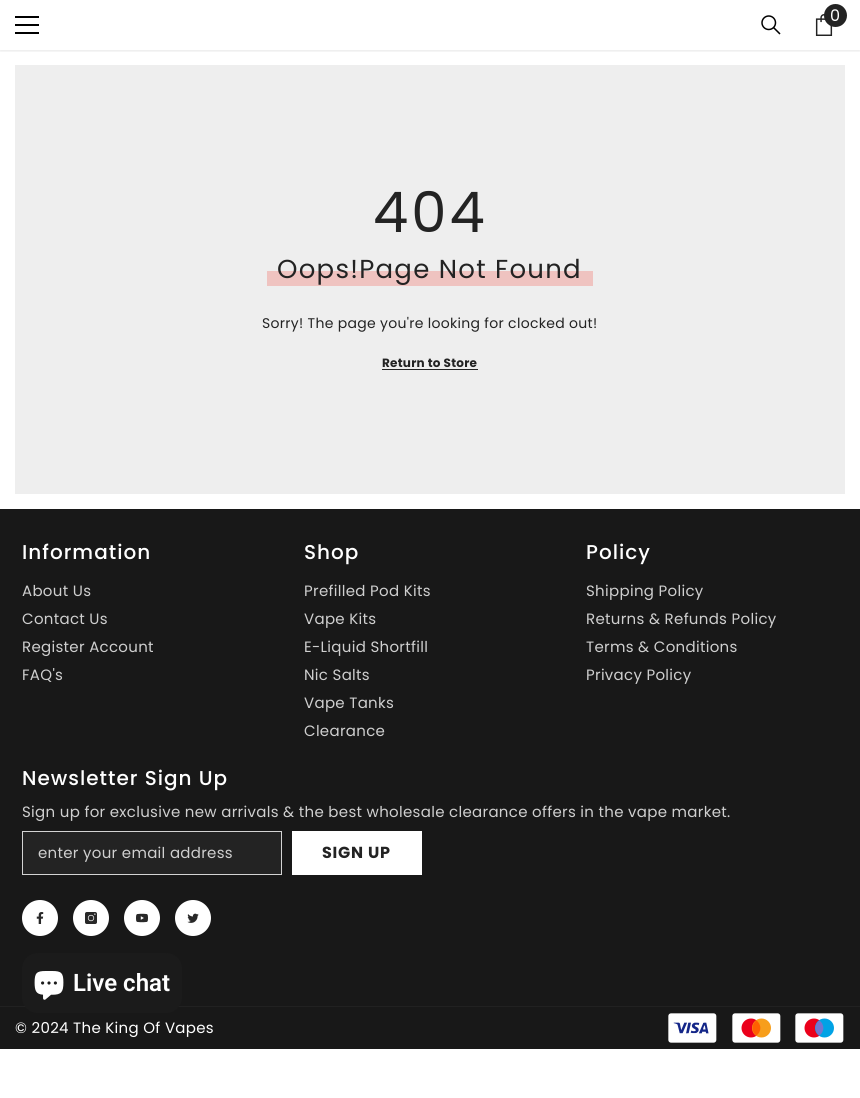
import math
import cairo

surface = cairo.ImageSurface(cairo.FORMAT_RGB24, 860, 1098)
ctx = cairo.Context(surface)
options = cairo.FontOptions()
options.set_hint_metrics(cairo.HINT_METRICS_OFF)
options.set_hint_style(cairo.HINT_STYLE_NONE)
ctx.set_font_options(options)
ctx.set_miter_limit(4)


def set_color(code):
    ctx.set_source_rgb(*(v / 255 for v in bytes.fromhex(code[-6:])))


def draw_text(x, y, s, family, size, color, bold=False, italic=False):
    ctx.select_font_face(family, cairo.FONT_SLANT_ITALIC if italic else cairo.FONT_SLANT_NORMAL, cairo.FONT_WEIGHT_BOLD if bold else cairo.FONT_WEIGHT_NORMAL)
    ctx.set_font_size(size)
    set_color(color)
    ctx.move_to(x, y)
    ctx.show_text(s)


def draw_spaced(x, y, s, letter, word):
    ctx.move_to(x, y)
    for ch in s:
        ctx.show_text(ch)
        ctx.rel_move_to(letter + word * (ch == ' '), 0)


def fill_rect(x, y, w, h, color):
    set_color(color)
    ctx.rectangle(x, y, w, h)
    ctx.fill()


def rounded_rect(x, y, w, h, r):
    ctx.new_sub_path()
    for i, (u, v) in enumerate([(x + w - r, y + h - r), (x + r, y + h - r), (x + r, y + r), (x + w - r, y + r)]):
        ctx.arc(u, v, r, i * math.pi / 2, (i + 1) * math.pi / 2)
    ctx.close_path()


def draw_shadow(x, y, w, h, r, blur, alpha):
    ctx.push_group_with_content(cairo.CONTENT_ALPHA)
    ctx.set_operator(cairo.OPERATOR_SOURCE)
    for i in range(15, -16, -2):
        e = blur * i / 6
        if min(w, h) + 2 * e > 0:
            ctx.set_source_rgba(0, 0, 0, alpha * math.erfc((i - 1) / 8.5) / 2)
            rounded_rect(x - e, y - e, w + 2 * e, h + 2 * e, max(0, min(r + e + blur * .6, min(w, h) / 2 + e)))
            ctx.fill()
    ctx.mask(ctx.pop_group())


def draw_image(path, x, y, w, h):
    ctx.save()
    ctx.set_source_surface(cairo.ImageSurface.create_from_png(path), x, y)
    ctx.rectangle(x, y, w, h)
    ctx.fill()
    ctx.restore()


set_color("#ffffff")
ctx.paint()
ctx.save()
ctx.rectangle(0, 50, 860, 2)
ctx.clip()
set_color("#000000")
draw_shadow(0, 1, 860, 50, 0, 1.5, 0.1)
ctx.restore()
fill_rect(15, 24, 24, 2, "#000000")
fill_rect(15, 16, 24, 2, "#000000")
fill_rect(15, 32, 24, 2, "#000000")
draw_image("assets/img1.png", 761, 15, 20, 20)
draw_image("assets/img2.png", 815, 14, 18, 22)
set_color("#232323")
ctx.arc(835.5, 15.5, 11.5, 0, 2 * math.pi)
ctx.fill()
draw_text(830, 21, "0", "Poppins", 16, "#ffffff")
fill_rect(15, 65, 830, 429, "#eeeeee")
ctx.set_font_size(56)
set_color("#232323")
draw_spaced(373, 232, "404", 3, 0)
fill_rect(267, 271, 326, 15, "#efc3c0")
ctx.set_font_size(26)
set_color("#232323")
draw_spaced(277, 278, "Oops!Page Not Found", 1.25, 0)
ctx.set_font_size(14)
draw_spaced(262, 328, "Sorry! The page you're looking for clocked out!", 0.3, 0)
ctx.select_font_face("Poppins", cairo.FONT_SLANT_NORMAL, cairo.FONT_WEIGHT_BOLD)
ctx.set_font_size(12)
draw_spaced(382, 367, "Return to Store", 0.25, 0)
fill_rect(382, 369, 96, 1, "#232323")
fill_rect(0, 509, 860, 497, "#181818")
ctx.select_font_face("Poppins Medium")
ctx.set_font_size(20)
set_color("#ffffff")
draw_spaced(22, 559, "Information", 1, 0)
ctx.select_font_face("Poppins")
ctx.set_font_size(15)
set_color("#cfcfcf")
draw_spaced(22, 596, "About Us", 0.3, 0)
draw_spaced(22, 624, "Contact Us", 0.3, 0)
draw_spaced(22, 652, "Register Account", 0.3, 0)
draw_spaced(22, 680, "FAQ's", 0.3, 0)
ctx.select_font_face("Poppins Medium")
ctx.set_font_size(20)
set_color("#ffffff")
draw_spaced(304, 559, "Shop", 1, 0)
ctx.select_font_face("Poppins")
ctx.set_font_size(15)
set_color("#cfcfcf")
draw_spaced(304, 596, "Prefilled Pod Kits", 0.3, 0)
draw_spaced(304, 624, "Vape Kits", 0.3, 0)
draw_spaced(304, 652, "E-Liquid Shortfill", 0.3, 0)
draw_spaced(304, 680, "Nic Salts", 0.3, 0)
draw_spaced(304, 708, "Vape Tanks", 0.3, 0)
draw_spaced(304, 736, "Clearance", 0.3, 0)
ctx.select_font_face("Poppins Medium")
ctx.set_font_size(20)
set_color("#ffffff")
draw_spaced(586, 559, "Policy", 1, 0)
ctx.select_font_face("Poppins")
ctx.set_font_size(15)
set_color("#cfcfcf")
draw_spaced(586, 596, "Shipping Policy", 0.3, 0)
draw_spaced(586, 624, "Returns & Refunds Policy", 0.3, 0)
draw_spaced(586, 652, "Terms & Conditions", 0.3, 0)
draw_spaced(586, 680, "Privacy Policy", 0.3, 0)
ctx.select_font_face("Poppins Medium")
ctx.set_font_size(20)
set_color("#ffffff")
draw_spaced(22, 785, "Newsletter Sign Up", 1, 0)
ctx.select_font_face("Poppins")
ctx.set_font_size(15)
set_color("#cfcfcf")
draw_spaced(22, 817, "Sign up for exclusive new arrivals & the best wholesale clearance offers in the vape market.", 0.3, 0)
set_color("#232323")
ctx.rectangle(22.5, 831.5, 259, 43)
ctx.fill_preserve()
set_color("#d3d3d3")
ctx.set_line_width(1)
ctx.stroke()
set_color("#cfcfcf")
draw_spaced(38, 858, "enter your email address", 0.3, 0)
fill_rect(292, 831, 130, 44, "#ffffff")
ctx.select_font_face("Poppins", cairo.FONT_SLANT_NORMAL, cairo.FONT_WEIGHT_BOLD)
ctx.set_font_size(16)
set_color("#232323")
draw_spaced(322, 858, "SIGN UP", 0.75, 0)
set_color("#ffffff")
ctx.new_path()
ctx.arc(40, 918, 18, 0, 2 * math.pi)
ctx.fill()
draw_image("assets/img3.png", 36, 912, 8, 12)
ctx.arc(91, 918, 18, 0, 2 * math.pi)
ctx.fill()
draw_image("assets/img4.png", 85, 912, 12, 12)
ctx.arc(142, 918, 18, 0, 2 * math.pi)
ctx.fill()
draw_image("assets/img5.png", 136, 913, 12, 10)
ctx.arc(193, 918, 18, 0, 2 * math.pi)
ctx.fill()
draw_image("assets/img6.png", 187, 913, 12, 10)
fill_rect(0, 1007, 860, 42, "#181818")
fill_rect(0, 1006, 860, 1, "#212121")
ctx.select_font_face("Poppins")
ctx.set_font_size(15)
set_color("#ffffff")
draw_spaced(15, 1033, "© 2024 The King Of Vapes", 0.3, 0)
draw_image("assets/img7.png", 668, 1013, 49, 30)
draw_image("assets/img8.png", 732, 1013, 49, 30)
draw_image("assets/img9.png", 795, 1013, 49, 30)
set_color("#1b1b1b")
rounded_rect(22, 953, 160, 60, 16)
ctx.fill()
draw_image("assets/img10.png", 34, 971, 30, 29)
draw_text(73, 991, "Live chat", "Roboto SemiBold", 24, "#ffffff")
surface.write_to_png("output.png")
